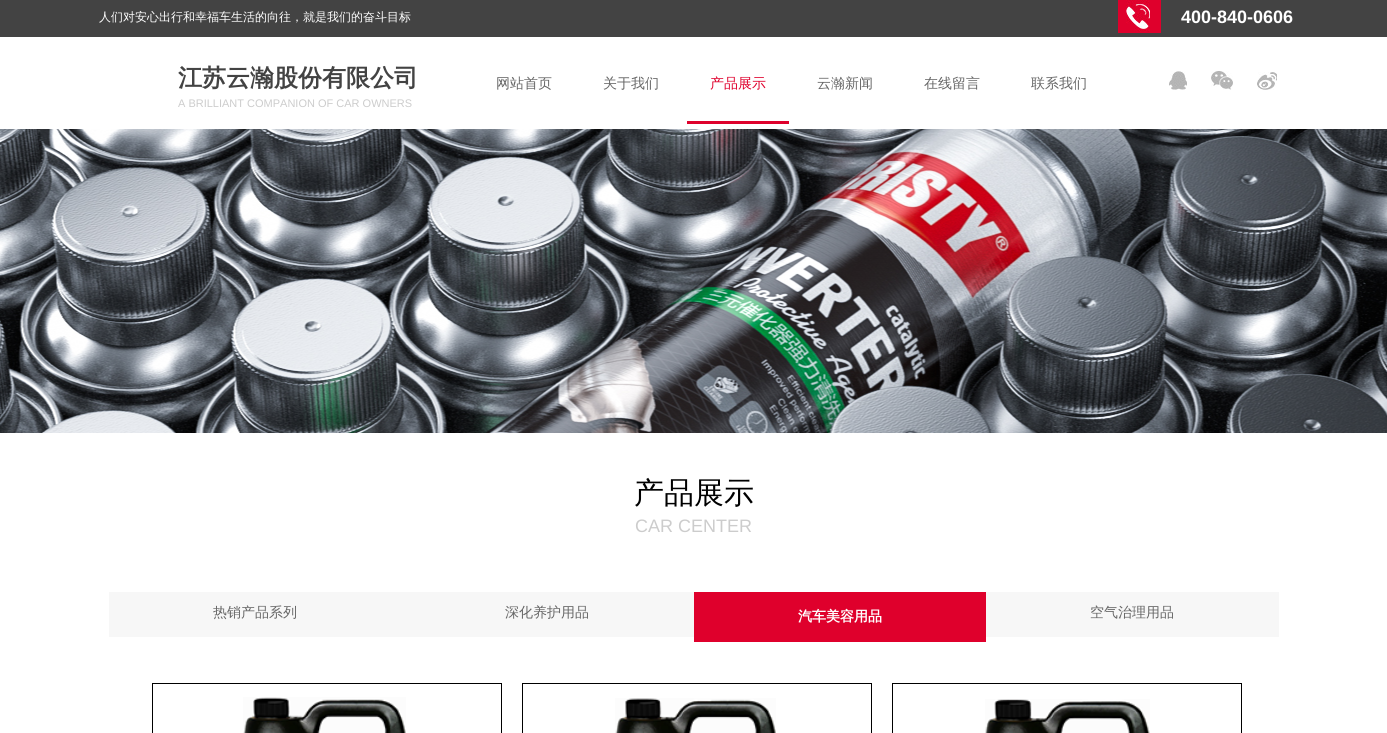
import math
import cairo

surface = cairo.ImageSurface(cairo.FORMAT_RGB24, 1387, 733)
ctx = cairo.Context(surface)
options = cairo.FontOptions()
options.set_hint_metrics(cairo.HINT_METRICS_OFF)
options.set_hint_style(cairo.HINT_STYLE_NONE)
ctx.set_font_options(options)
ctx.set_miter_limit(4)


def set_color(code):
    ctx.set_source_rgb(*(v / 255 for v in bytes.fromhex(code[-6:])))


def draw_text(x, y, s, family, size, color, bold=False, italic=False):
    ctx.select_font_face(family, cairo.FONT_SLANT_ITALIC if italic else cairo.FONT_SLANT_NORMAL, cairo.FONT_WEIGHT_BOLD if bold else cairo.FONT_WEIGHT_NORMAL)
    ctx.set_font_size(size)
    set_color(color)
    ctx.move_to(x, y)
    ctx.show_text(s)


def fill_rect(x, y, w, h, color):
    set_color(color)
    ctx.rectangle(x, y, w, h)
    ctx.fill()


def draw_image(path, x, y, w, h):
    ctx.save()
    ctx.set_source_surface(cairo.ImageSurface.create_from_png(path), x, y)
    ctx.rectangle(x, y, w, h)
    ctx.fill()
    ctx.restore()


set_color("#ffffff")
ctx.paint()
fill_rect(0, 0, 1387, 37, "#434343")
draw_text(99, 21, "人们对安心出行和幸福车生活的向往，就是我们的奋斗目标", "WenQuanYi Zen Hei Medium", 12, "#ffffff")
draw_image("assets/img1.png", 1118, 0, 43, 33)
draw_text(1181, 23, "400-840-0606", "Liberation Sans", 18, "#ffffff", bold=True)
draw_text(178, 86, "江苏云瀚股份有限公司", "WenQuanYi Zen Hei", 24, "#434343", bold=True)
draw_text(178, 107, "A BRILLIANT COMPANION OF CAR OWNERS", "Liberation Sans", 11, "#cccccc")
draw_text(496, 88, "网站首页", "WenQuanYi Zen Hei Medium", 14, "#666666")
draw_text(603, 88, "关于我们", "WenQuanYi Zen Hei Medium", 14, "#666666")
draw_image("assets/img2.png", 687, 121, 102, 3)
draw_text(710, 88, "产品展示", "WenQuanYi Zen Hei Medium", 14, "#df002c")
draw_text(817, 88, "云瀚新闻", "WenQuanYi Zen Hei Medium", 14, "#666666")
draw_text(924, 88, "在线留言", "WenQuanYi Zen Hei Medium", 14, "#666666")
draw_text(1031, 88, "联系我们", "WenQuanYi Zen Hei Medium", 14, "#666666")
draw_image("assets/img3.png", 1169, 71, 18, 19)
draw_image("assets/img4.png", 1211, 71, 22, 19)
draw_image("assets/img5.png", 1257, 72, 20, 18)
draw_image("assets/img6.png", 0, 129, 1387, 304)
draw_text(634, 503, "产品展示", "WenQuanYi Zen Hei Medium", 30, "#000000")
draw_text(635, 532, "CAR CENTER", "Liberation Sans", 18, "#cccccc")
fill_rect(109, 592, 585, 45, "#f7f7f7")
draw_text(213, 617, "热销产品系列", "WenQuanYi Zen Hei Medium", 14, "#666666")
draw_text(505, 617, "深化养护用品", "WenQuanYi Zen Hei Medium", 14, "#666666")
fill_rect(694, 592, 292, 50, "#df002c")
draw_text(798, 621, "汽车美容用品", "WenQuanYi Zen Hei", 14, "#ffffff", bold=True)
fill_rect(986, 592, 293, 45, "#f7f7f7")
draw_text(1090, 617, "空气治理用品", "WenQuanYi Zen Hei Medium", 14, "#666666")
ctx.rectangle(152.5, 683.5, 349, 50)
set_color("#000000")
ctx.set_line_width(1)
ctx.stroke()
draw_image("assets/img7.png", 243, 697, 163, 36)
ctx.rectangle(522.5, 683.5, 349, 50)
ctx.stroke()
draw_image("assets/img8.png", 615, 698, 161, 35)
ctx.rectangle(892.5, 683.5, 349, 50)
ctx.stroke()
draw_image("assets/img9.png", 985, 699, 165, 34)
surface.write_to_png("output.png")
